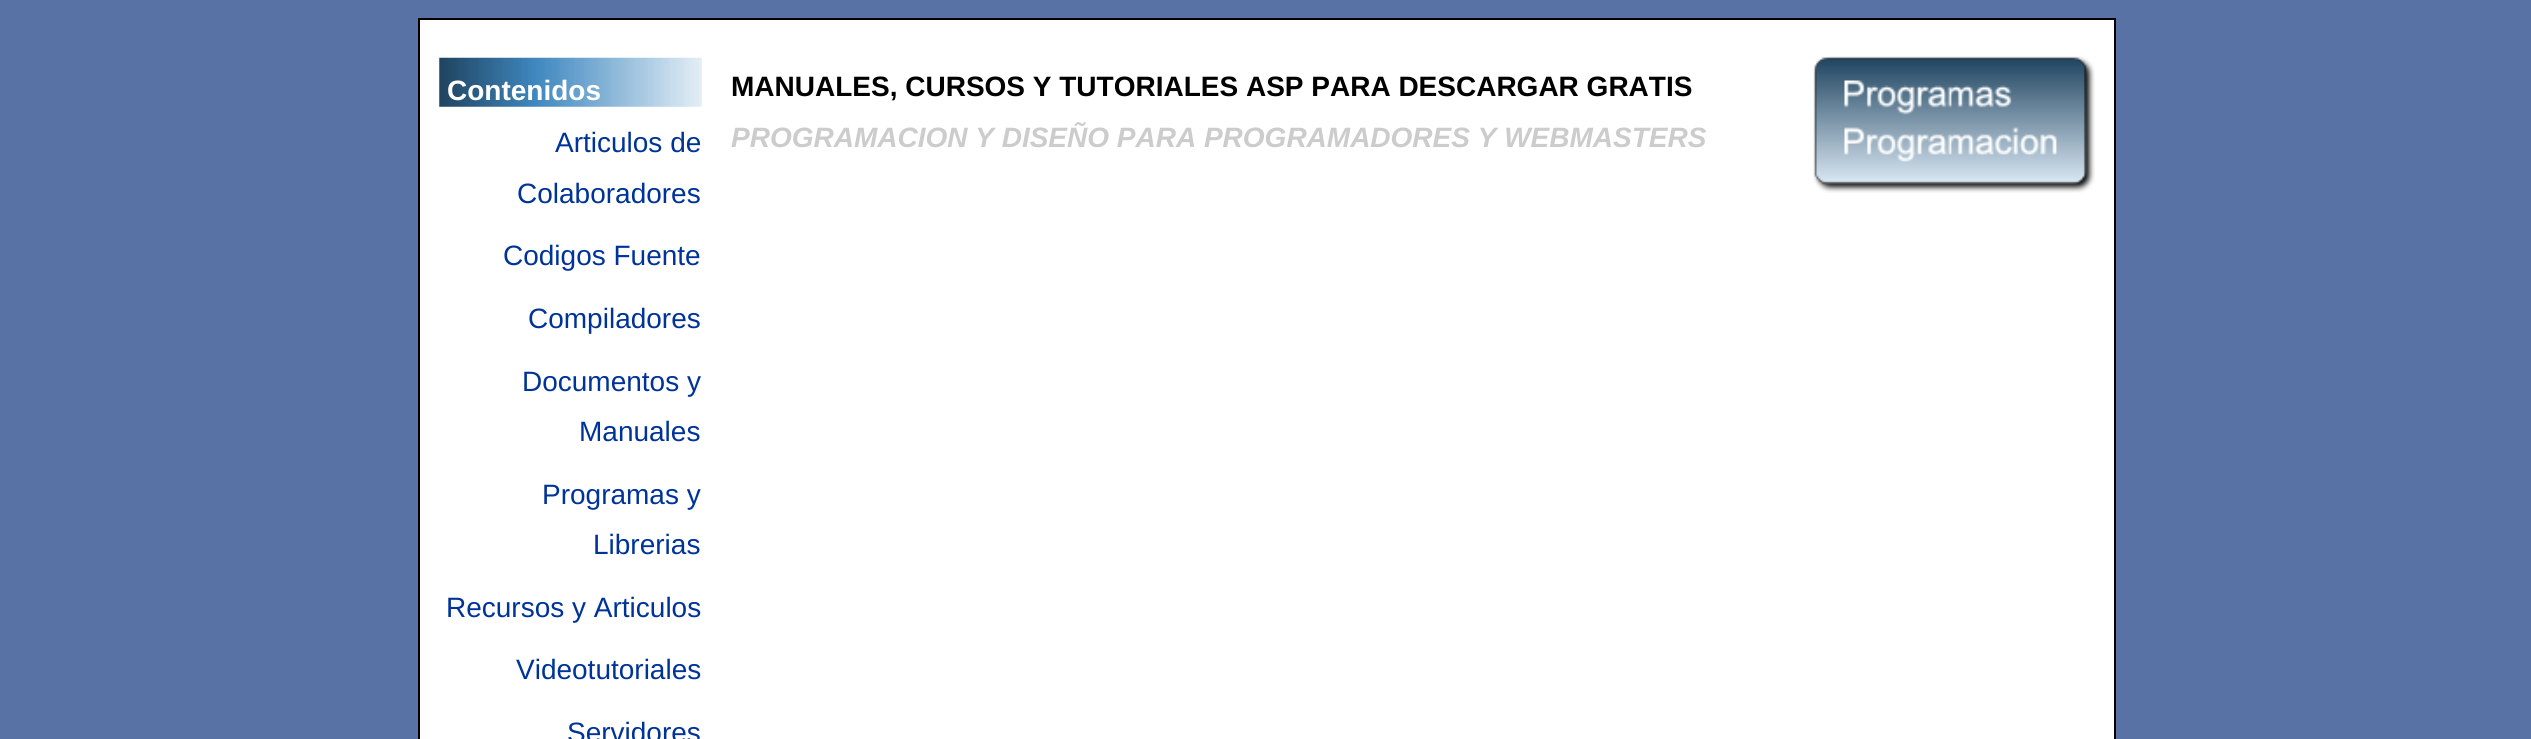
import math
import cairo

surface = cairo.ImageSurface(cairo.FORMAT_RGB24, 2531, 739)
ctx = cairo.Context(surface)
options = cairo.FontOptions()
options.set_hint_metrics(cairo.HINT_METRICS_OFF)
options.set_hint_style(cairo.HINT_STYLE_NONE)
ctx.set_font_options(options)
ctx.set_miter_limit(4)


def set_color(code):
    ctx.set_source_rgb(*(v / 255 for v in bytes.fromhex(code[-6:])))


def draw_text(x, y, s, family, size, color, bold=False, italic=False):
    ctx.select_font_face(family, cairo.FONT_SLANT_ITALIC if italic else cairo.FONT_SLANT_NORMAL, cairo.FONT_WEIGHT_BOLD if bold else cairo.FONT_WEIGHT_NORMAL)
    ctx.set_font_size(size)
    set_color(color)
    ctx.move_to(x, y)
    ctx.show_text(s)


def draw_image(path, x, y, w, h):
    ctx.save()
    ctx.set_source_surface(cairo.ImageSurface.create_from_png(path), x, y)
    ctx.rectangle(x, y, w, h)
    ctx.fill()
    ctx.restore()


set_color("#5972a6")
ctx.paint()
set_color("#ffffff")
ctx.rectangle(419, 19, 1696, 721)
ctx.fill_preserve()
set_color("#000000")
ctx.stroke()
draw_image("assets/img1.png", 439, 57, 263, 50)
draw_text(447, 100, "Contenidos", "Liberation Sans", 28, "#ffffff", bold=True)
draw_text(555, 152, "Articulos de", "Liberation Sans", 28, "#003399")
draw_text(517, 203, "Colaboradores", "Liberation Sans", 28, "#003399")
draw_text(503, 265, "Codigos Fuente", "Liberation Sans", 28, "#003399")
draw_text(528, 328, "Compiladores", "Liberation Sans", 28, "#003399")
draw_text(522, 391, "Documentos y", "Liberation Sans", 28, "#003399")
draw_text(579, 441, "Manuales", "Liberation Sans", 28, "#003399")
draw_text(542, 504, "Programas y", "Liberation Sans", 28, "#003399")
draw_text(593, 554, "Librerias", "Liberation Sans", 28, "#003399")
draw_text(446, 617, "Recursos y Articulos", "Liberation Sans", 28, "#003399")
draw_text(516, 679, "Videotutoriales", "Liberation Sans", 28, "#003399")
draw_text(567, 742, "Servidores", "Liberation Sans", 28, "#003399")
draw_text(731, 96, "MANUALES, CURSOS Y TUTORIALES ASP PARA DESCARGAR GRATIS", "Liberation Sans", 28, "#000000", bold=True)
draw_text(731, 147, "PROGRAMACION Y DISEÑO PARA PROGRAMADORES Y WEBMASTERS", "Liberation Sans", 28, "#cccccc", bold=True, italic=True)
draw_image("assets/img2.png", 1813, 56, 282, 137)
surface.write_to_png("output.png")
